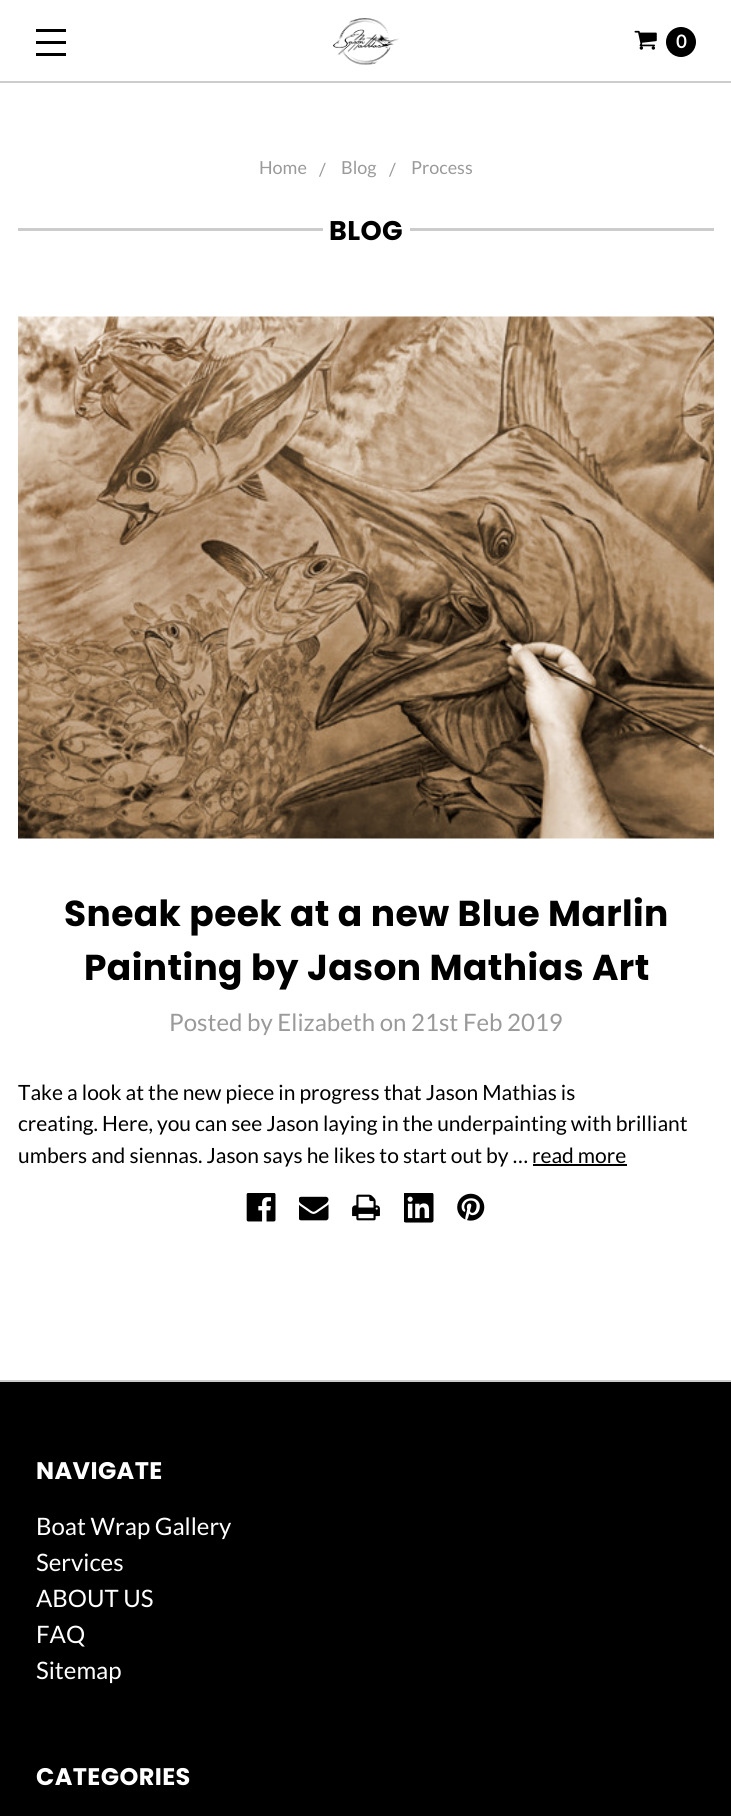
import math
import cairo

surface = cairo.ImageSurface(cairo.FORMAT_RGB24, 731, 1816)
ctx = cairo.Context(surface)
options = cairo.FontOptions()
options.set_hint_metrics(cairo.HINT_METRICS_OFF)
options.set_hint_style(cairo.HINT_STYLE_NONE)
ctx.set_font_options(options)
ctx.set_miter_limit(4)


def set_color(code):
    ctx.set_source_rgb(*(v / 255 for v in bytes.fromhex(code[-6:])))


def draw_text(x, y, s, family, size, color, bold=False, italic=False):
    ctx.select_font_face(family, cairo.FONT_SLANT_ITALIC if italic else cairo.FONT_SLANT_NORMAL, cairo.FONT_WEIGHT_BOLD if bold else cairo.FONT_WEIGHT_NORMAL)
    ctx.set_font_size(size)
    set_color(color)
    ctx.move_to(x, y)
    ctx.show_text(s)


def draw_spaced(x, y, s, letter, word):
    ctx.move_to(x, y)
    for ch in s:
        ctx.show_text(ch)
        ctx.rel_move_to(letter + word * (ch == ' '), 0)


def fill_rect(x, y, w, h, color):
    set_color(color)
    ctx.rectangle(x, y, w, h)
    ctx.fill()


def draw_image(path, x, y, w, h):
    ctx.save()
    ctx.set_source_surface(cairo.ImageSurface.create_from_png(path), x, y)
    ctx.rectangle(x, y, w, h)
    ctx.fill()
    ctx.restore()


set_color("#ffffff")
ctx.paint()
fill_rect(0, 81, 731, 2, "#cccccc")
fill_rect(36, 41, 30, 3, "#000000")
fill_rect(36, 29, 30, 3, "#000000")
fill_rect(36, 53, 30, 3, "#000000")
draw_image("assets/img1.png", 333, 18, 66, 47)
draw_image("assets/img2.png", 634, 30, 23, 20)
ctx.arc(681, 42, 15, 0, 2 * math.pi)
ctx.fill()
draw_text(676, 48, "0", "Lato", 18, "#ffffff", bold=True)
draw_text(259, 174, "Home", "Lato", 18, "#9a9a9a")
draw_text(319, 176, "/", "Lato", 18, "#9a9a9a")
draw_text(341, 174, "Blog", "Lato", 18, "#9a9a9a")
draw_text(389, 176, "/", "Lato", 18, "#9a9a9a")
draw_text(411, 174, "Process", "Lato", 18, "#9a9a9a")
fill_rect(18, 228, 305, 3, "#cccccc")
ctx.select_font_face("Poppins", cairo.FONT_SLANT_NORMAL, cairo.FONT_WEIGHT_BOLD)
ctx.set_font_size(27)
set_color("#000000")
draw_spaced(329, 240, "BLOG", 0.4, 0)
fill_rect(410, 228, 304, 3, "#cccccc")
draw_image("assets/img3.png", 18, 316, 696, 523)
ctx.set_font_size(36)
set_color("#000000")
draw_spaced(64, 926, "Sneak peek at a new Blue Marlin", 0.4, 0)
draw_spaced(84, 980, "Painting by Jason Mathias Art", 0.4, 0)
draw_text(169, 1031, "Posted by Elizabeth on 21st Feb 2019", "Lato", 24, "#9a9a9a")
draw_text(18, 1100, "Take a look at the new piece in progress that Jason Mathias is", "Lato", 21, "#000000")
draw_text(18, 1131, "creating. Here, you can see Jason laying in the underpainting with brilliant", "Lato", 21, "#000000")
draw_text(18, 1163, "umbers and siennas. Jason says he likes to start out by … read more", "Lato", 21, "#000000")
fill_rect(533, 1164, 94, 2, "#000000")
draw_image("assets/img4.png", 246, 1193, 30, 29)
draw_image("assets/img5.png", 299, 1196, 30, 25)
draw_image("assets/img6.png", 352, 1194, 28, 27)
draw_image("assets/img7.png", 404, 1193, 30, 30)
draw_image("assets/img8.png", 457, 1193, 28, 28)
fill_rect(0, 1382, 731, 434, "#000000")
fill_rect(0, 1380, 731, 2, "#cccccc")
ctx.select_font_face("Poppins", cairo.FONT_SLANT_NORMAL, cairo.FONT_WEIGHT_BOLD)
ctx.set_font_size(24)
set_color("#ffffff")
draw_spaced(36, 1479, "NAVIGATE", 0.4, 0)
draw_text(36, 1535, "Boat Wrap Gallery", "Lato", 24, "#ffffff")
draw_text(36, 1571, "Services", "Lato", 24, "#ffffff")
draw_text(36, 1607, "ABOUT US", "Lato", 24, "#ffffff")
draw_text(36, 1643, "FAQ", "Lato", 24, "#ffffff")
draw_text(36, 1679, "Sitemap", "Lato", 24, "#ffffff")
ctx.select_font_face("Poppins", cairo.FONT_SLANT_NORMAL, cairo.FONT_WEIGHT_BOLD)
draw_spaced(36, 1785, "CATEGORIES", 0.4, 0)
surface.write_to_png("output.png")
